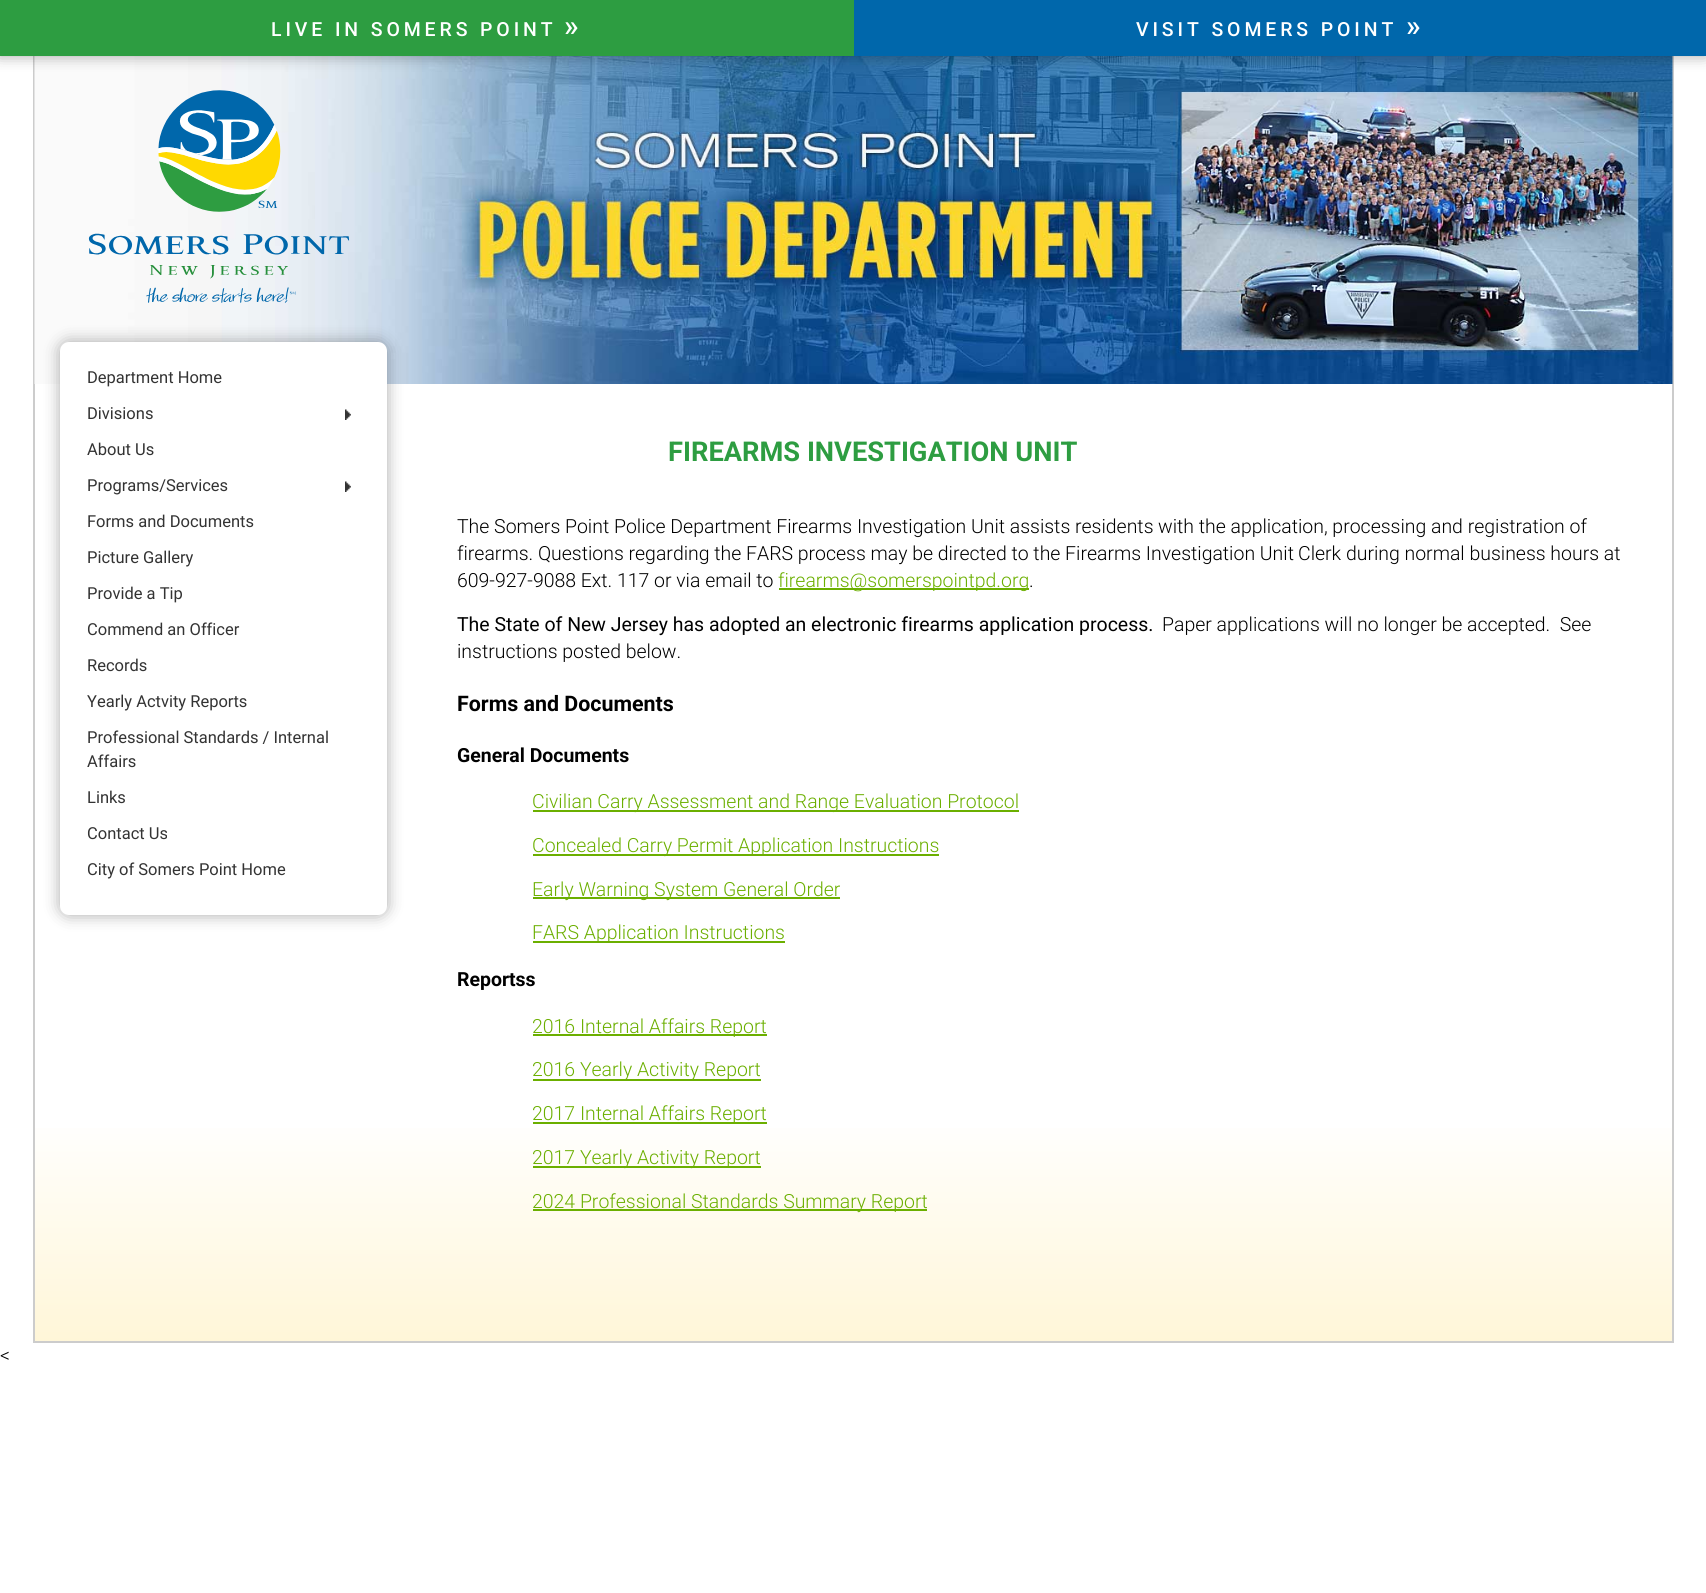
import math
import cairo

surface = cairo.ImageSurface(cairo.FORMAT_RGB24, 1706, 1593)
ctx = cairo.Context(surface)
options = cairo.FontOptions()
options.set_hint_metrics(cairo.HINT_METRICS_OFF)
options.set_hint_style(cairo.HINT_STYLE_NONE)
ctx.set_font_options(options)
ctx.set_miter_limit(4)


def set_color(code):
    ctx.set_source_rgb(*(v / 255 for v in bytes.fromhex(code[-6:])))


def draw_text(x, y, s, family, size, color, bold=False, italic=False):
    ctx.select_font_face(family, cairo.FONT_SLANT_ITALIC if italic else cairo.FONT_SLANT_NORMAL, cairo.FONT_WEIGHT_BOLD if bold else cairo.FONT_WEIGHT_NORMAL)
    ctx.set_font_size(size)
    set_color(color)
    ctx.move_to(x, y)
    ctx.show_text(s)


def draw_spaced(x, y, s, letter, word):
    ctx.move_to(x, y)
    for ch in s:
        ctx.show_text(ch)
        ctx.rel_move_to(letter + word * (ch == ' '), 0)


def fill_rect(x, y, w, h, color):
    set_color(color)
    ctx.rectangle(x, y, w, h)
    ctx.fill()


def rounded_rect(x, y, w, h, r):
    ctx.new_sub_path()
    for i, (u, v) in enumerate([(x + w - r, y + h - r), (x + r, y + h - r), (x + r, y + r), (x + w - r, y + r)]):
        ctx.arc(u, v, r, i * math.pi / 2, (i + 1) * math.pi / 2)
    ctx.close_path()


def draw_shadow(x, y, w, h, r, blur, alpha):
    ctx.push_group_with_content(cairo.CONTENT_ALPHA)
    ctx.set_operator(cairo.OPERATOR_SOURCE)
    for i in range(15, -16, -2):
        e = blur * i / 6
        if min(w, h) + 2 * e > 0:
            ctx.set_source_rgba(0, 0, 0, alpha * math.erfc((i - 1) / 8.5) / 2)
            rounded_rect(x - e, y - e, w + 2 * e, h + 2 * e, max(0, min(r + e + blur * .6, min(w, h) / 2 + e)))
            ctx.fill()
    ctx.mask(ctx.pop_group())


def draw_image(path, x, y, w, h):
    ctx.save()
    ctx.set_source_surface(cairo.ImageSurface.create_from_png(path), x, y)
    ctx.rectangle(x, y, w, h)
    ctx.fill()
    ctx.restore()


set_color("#ffffff")
ctx.paint()
gradient = cairo.LinearGradient(854, 1.5, 854, 1341)
gradient.add_color_stop_rgba(0, 1, 1, 1, 1)
gradient.add_color_stop_rgba(0.83, 1, 1, 1, 1)
gradient.add_color_stop_rgba(1, 1, 0.965, 0.847, 1)
ctx.set_source(gradient)
ctx.rectangle(35, 1128, 1637, 213)
ctx.fill()
ctx.rectangle(34, 1, 1639, 1341)
set_color("#cccccc")
ctx.stroke()
draw_image("assets/img1.png", 34, 56, 1639, 328)
set_color("#000000")
draw_shadow(-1, 0, 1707, 56, 0, 7.5, 0.34)
fill_rect(0, 0, 854, 56, "#2d9d41")
ctx.select_font_face("Roboto Medium")
ctx.set_font_size(19.45)
set_color("#ffffff")
draw_spaced(271, 36, "LIVE IN SOMERS POINT", 3.9, 0)
ctx.set_font_size(30)
draw_spaced(564, 36, "»", 3.9, 0)
fill_rect(854, 0, 852, 56, "#0067ab")
ctx.set_font_size(19.45)
set_color("#ffffff")
draw_spaced(1136, 36, "VISIT SOMERS POINT", 3.9, 0)
ctx.set_font_size(30)
draw_spaced(1406, 36, "»", 3.9, 0)
draw_image("assets/img2.png", 88, 90, 262, 213)
set_color("#000000")
draw_shadow(60, 342, 327, 573, 9, 8, 0.33)
set_color("#ffffff")
rounded_rect(60, 342, 327, 573, 9)
ctx.fill()
draw_text(87, 383, "Department Home", "Roboto", 16.5, "#333333")
draw_image("assets/img3.png", 345, 409, 6, 11)
draw_text(87, 419, "Divisions", "Roboto", 16.5, "#333333")
draw_text(87, 455, "About Us", "Roboto", 16.5, "#333333")
draw_image("assets/img3.png", 345, 481, 6, 11)
draw_text(87, 491, "Programs/Services", "Roboto", 16.5, "#333333")
draw_text(87, 527, "Forms and Documents", "Roboto", 16.5, "#333333")
draw_text(87, 563, "Picture Gallery", "Roboto", 16.5, "#333333")
draw_text(87, 599, "Provide a Tip", "Roboto", 16.5, "#333333")
draw_text(87, 635, "Commend an Officer", "Roboto", 16.5, "#333333")
draw_text(87, 671, "Records", "Roboto", 16.5, "#333333")
draw_text(87, 707, "Yearly Actvity Reports", "Roboto", 16.5, "#333333")
draw_text(87, 743, "Professional Standards / Internal", "Roboto", 16.5, "#333333")
draw_text(87, 767, "Affairs", "Roboto", 16.5, "#333333")
draw_text(87, 803, "Links", "Roboto", 16.5, "#333333")
draw_text(87, 839, "Contact Us", "Roboto", 16.5, "#333333")
draw_text(87, 875, "City of Somers Point Home", "Roboto", 16.5, "#333333")
draw_text(668, 461, "FIREARMS INVESTIGATION UNIT", "Roboto", 27.25, "#2d9d41", bold=True)
draw_text(457, 533, "The Somers Point Police Department Firearms Investigation Unit assists residents", "Roboto Light", 19.45, "#000000")
draw_text(1158, 533, "with the application, processing and registration of", "Roboto Light", 19.45, "#000000")
draw_text(457, 560, "firearms. Questions regarding the FARS process may be directed to the Firearms Investigation Unit", "Roboto Light", 19.45, "#000000")
draw_text(1298, 560, "Clerk during normal business hours at", "Roboto Light", 19.45, "#000000")
draw_text(457, 587, "609-927-9088 Ext. 117 or via email to", "Roboto Light", 19.45, "#000000")
fill_rect(779, 588, 250, 2, "#6baf00")
draw_text(778, 587, "firearms@somerspointpd.org", "Roboto Light", 19.45, "#6baf00")
draw_text(1029, 587, ".", "Roboto Light", 19.45, "#000000")
draw_text(457, 631, "The State of New Jersey has adopted an electronic firearms application process.", "Roboto", 19.45, "#000000")
draw_text(1162, 631, "Paper applications will no longer be accepted.  See", "Roboto Light", 19.45, "#000000")
draw_text(457, 658, "instructions posted below.", "Roboto Light", 19.45, "#000000")
draw_text(457, 711, "Forms and Documents", "Roboto", 21.4, "#000000", bold=True)
draw_text(457, 762, "General Documents", "Roboto", 19.45, "#000000", bold=True)
fill_rect(533, 810, 486, 2, "#6baf00")
draw_text(532, 808, "Civilian Carry Assessment and Range Evaluation Protocol", "Roboto Light", 19.45, "#6baf00")
fill_rect(533, 854, 406, 2, "#6baf00")
draw_text(532, 852, "Concealed Carry Permit Application Instructions", "Roboto Light", 19.45, "#6baf00")
fill_rect(533, 897, 307, 2, "#6baf00")
draw_text(532, 896, "Early Warning System General Order", "Roboto Light", 19.45, "#6baf00")
fill_rect(533, 941, 252, 2, "#6baf00")
draw_text(532, 939, "FARS Application Instructions", "Roboto Light", 19.45, "#6baf00")
draw_text(457, 986, "Reportss", "Roboto", 19.45, "#000000", bold=True)
fill_rect(533, 1034, 234, 2, "#6baf00")
draw_text(532, 1033, "2016 Internal Affairs Report", "Roboto Light", 19.45, "#6baf00")
fill_rect(533, 1079, 228, 2, "#6baf00")
draw_text(532, 1076, "2016 Yearly Activity Report", "Roboto Light", 19.45, "#6baf00")
fill_rect(533, 1122, 234, 2, "#6baf00")
draw_text(532, 1120, "2017 Internal Affairs Report", "Roboto Light", 19.45, "#6baf00")
fill_rect(533, 1166, 228, 2, "#6baf00")
draw_text(532, 1164, "2017 Yearly Activity Report", "Roboto Light", 19.45, "#6baf00")
fill_rect(533, 1209, 394, 2, "#6baf00")
draw_text(532, 1208, "2024 Professional Standards Summary Report", "Roboto Light", 19.45, "#6baf00")
draw_text(0, 1362, "<", "Roboto Light", 19.45, "#000000")
surface.write_to_png("output.png")
